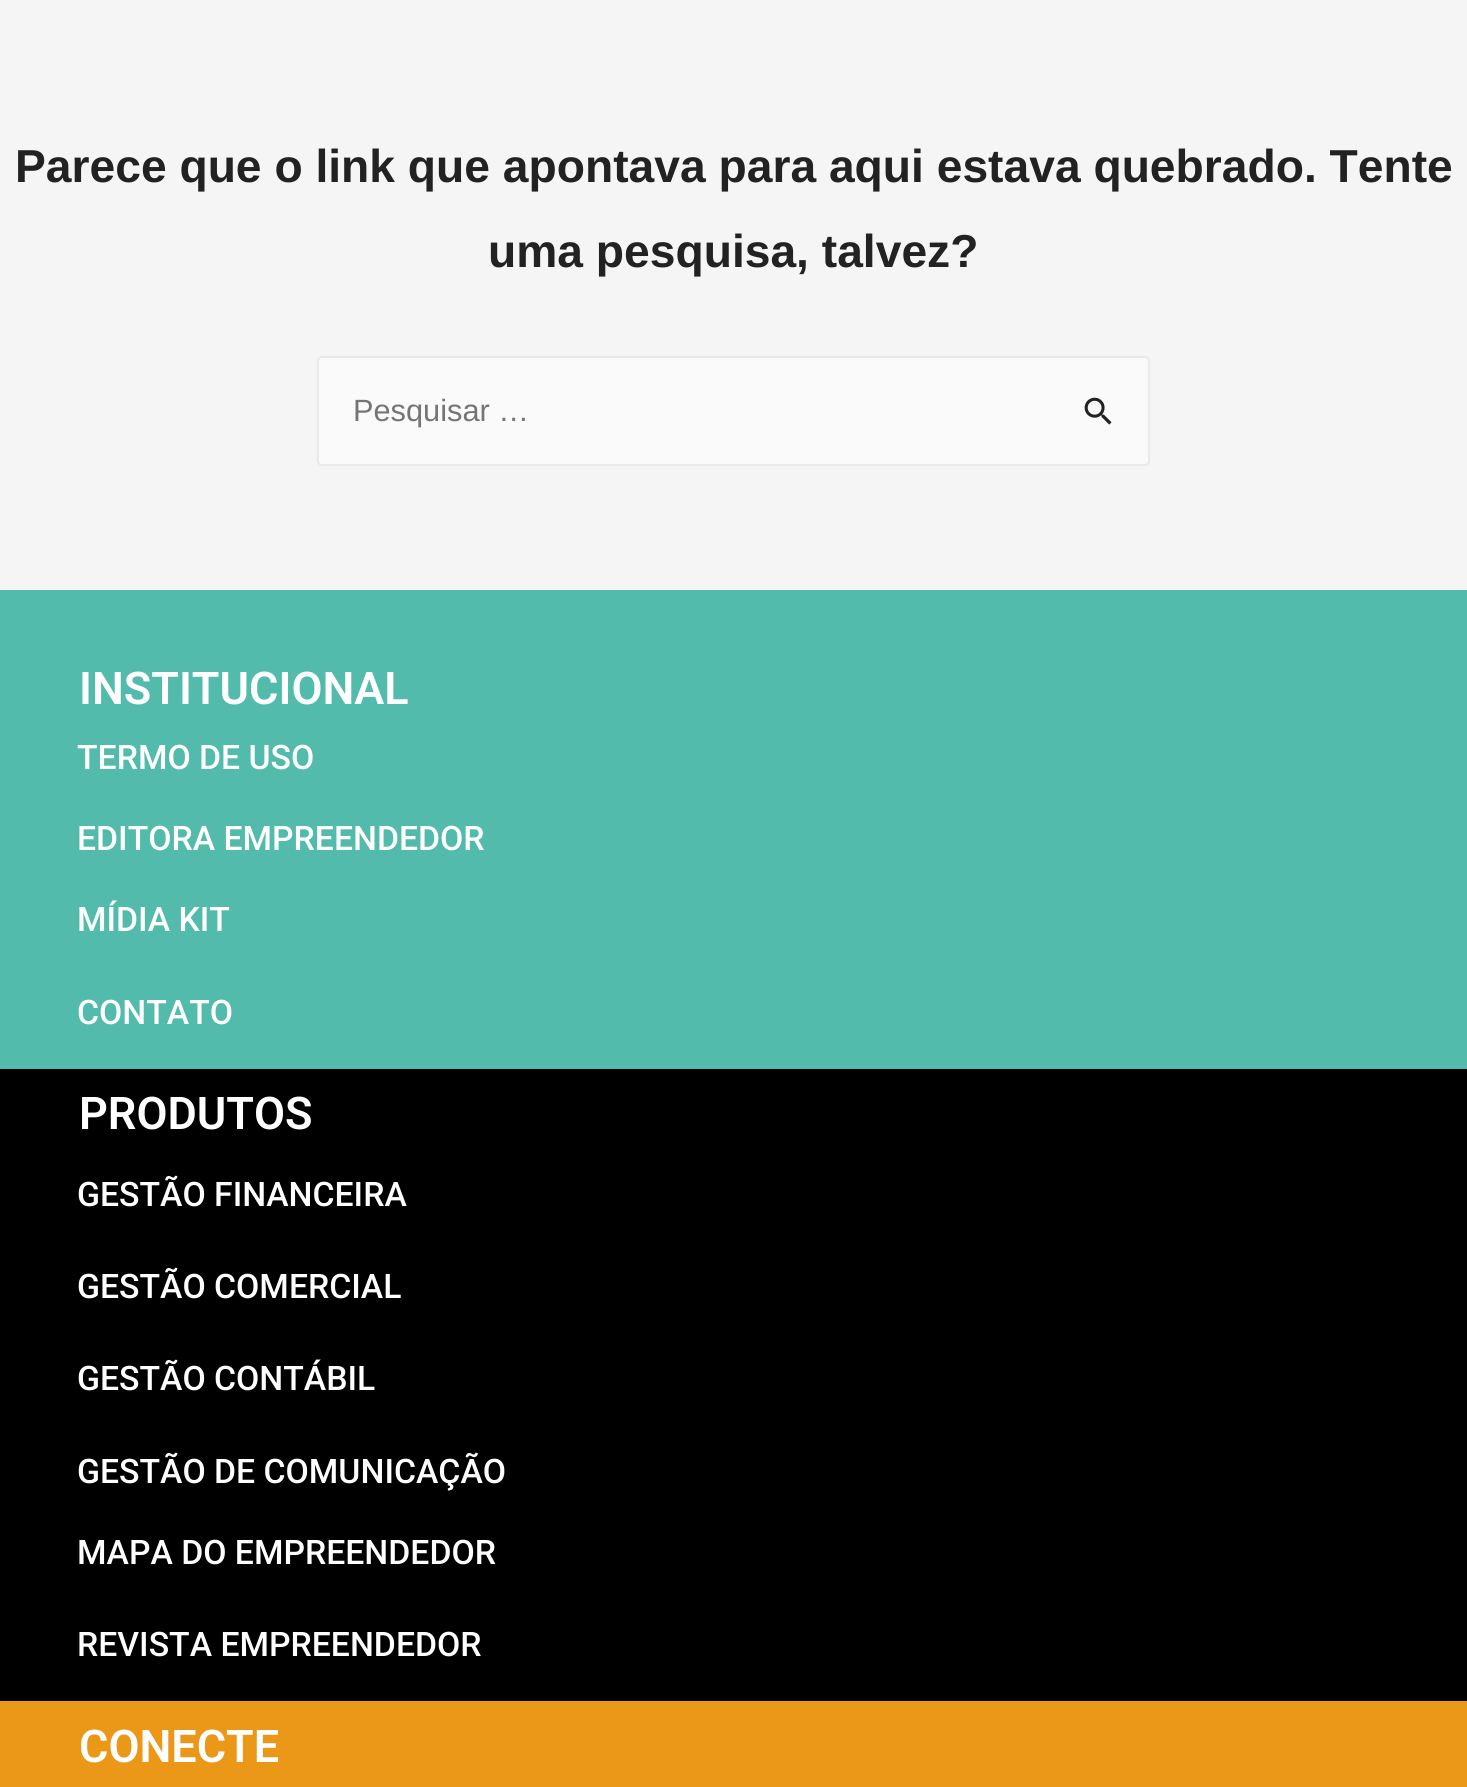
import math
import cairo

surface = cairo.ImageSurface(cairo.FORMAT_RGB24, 1467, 1787)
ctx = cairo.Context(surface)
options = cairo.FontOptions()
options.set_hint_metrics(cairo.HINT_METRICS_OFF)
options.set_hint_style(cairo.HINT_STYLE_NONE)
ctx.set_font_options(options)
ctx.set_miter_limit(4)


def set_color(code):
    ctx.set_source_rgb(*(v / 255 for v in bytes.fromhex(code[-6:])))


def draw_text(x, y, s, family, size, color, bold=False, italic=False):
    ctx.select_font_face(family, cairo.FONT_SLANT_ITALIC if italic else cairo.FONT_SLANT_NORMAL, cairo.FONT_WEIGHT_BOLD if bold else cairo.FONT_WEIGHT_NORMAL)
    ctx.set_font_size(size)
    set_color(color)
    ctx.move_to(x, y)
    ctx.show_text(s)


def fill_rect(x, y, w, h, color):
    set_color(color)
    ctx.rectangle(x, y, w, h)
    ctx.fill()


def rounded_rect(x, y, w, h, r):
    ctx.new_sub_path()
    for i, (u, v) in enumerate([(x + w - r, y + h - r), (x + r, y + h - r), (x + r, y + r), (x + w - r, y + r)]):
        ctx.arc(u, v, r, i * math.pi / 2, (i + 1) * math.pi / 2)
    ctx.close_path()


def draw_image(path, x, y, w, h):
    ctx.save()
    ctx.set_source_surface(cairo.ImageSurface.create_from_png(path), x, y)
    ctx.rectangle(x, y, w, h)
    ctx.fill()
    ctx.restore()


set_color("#f5f5f5")
ctx.paint()
draw_text(15, 182, "Parece que o link que apontava para aqui estava quebrado. Tente", "Liberation Sans", 46.2, "#222222", bold=True)
draw_text(488, 267, "uma pesquisa, talvez?", "Liberation Sans", 46.2, "#222222", bold=True)
set_color("#fafafa")
rounded_rect(318, 357, 831, 108, 4)
ctx.fill_preserve()
set_color("#eaeaea")
ctx.stroke()
draw_text(353, 421, "Pesquisar …", "Liberation Sans", 30.75, "#757575")
draw_image("assets/img1.png", 1084, 397, 28, 28)
fill_rect(0, 590, 1467, 479, "#53bbab")
draw_text(79, 704, "INSTITUCIONAL", "Roboto SemiBold", 45, "#ffffff")
draw_text(77, 769, "TERMO DE USO", "Roboto Medium", 33.75, "#ffffff")
draw_text(77, 850, "EDITORA EMPREENDEDOR", "Roboto Medium", 33.75, "#ffffff")
draw_text(77, 931, "MÍDIA KIT", "Roboto Medium", 33.75, "#ffffff")
draw_text(77, 1024, "CONTATO", "Roboto Medium", 33.75, "#ffffff")
fill_rect(0, 1069, 1467, 632, "#000000")
draw_text(79, 1129, "PRODUTOS", "Roboto SemiBold", 45, "#ffffff")
draw_text(77, 1206, "GESTÃO FINANCEIRA", "Roboto Medium", 33.75, "#ffffff")
draw_text(77, 1298, "GESTÃO COMERCIAL", "Roboto Medium", 33.75, "#ffffff")
draw_text(77, 1390, "GESTÃO CONTÁBIL", "Roboto Medium", 33.75, "#ffffff")
draw_text(77, 1483, "GESTÃO DE COMUNICAÇÃO", "Roboto Medium", 33.75, "#ffffff")
draw_text(77, 1564, "MAPA DO EMPREENDEDOR", "Roboto Medium", 33.75, "#ffffff")
draw_text(77, 1656, "REVISTA EMPREENDEDOR", "Roboto Medium", 33.75, "#ffffff")
fill_rect(0, 1701, 1467, 86, "#eb9819")
draw_text(79, 1762, "CONECTE", "Roboto SemiBold", 45, "#ffffff")
surface.write_to_png("output.png")
